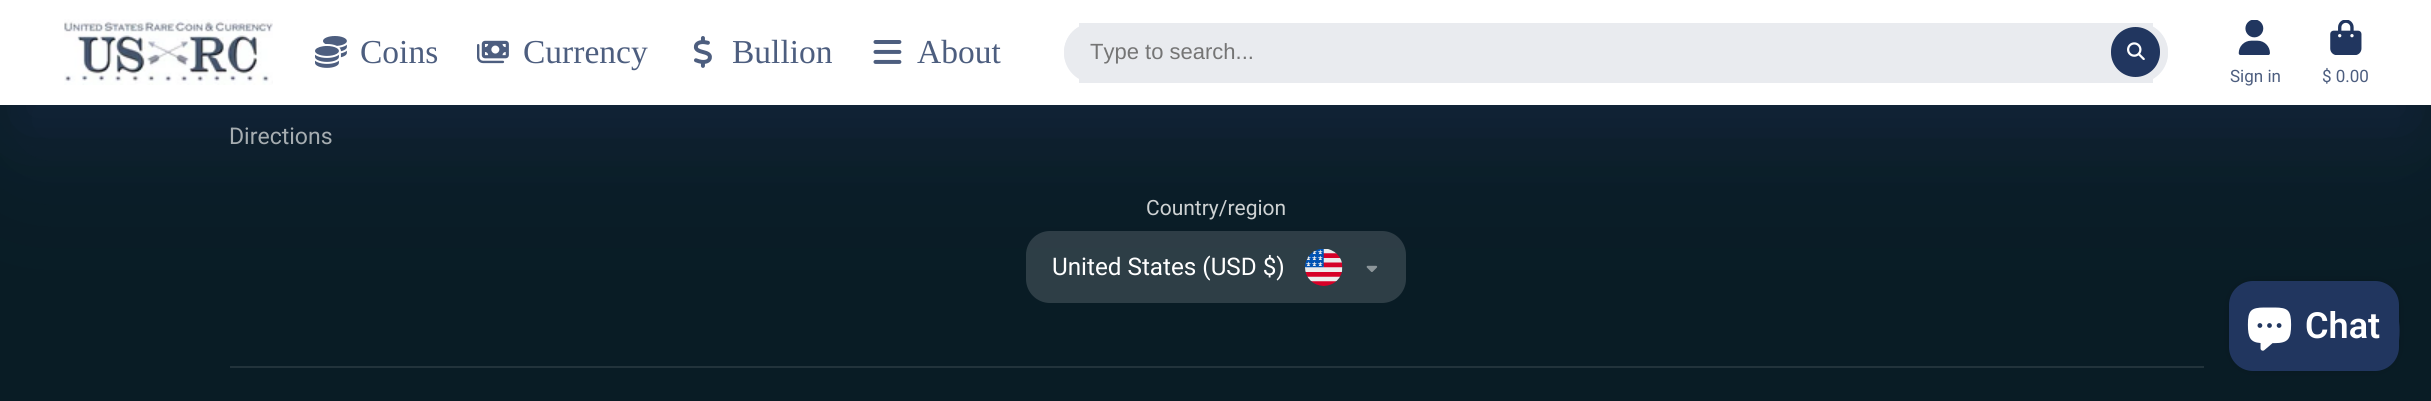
import math
import cairo

surface = cairo.ImageSurface(cairo.FORMAT_RGB24, 2431, 401)
ctx = cairo.Context(surface)
options = cairo.FontOptions()
options.set_hint_metrics(cairo.HINT_METRICS_OFF)
options.set_hint_style(cairo.HINT_STYLE_NONE)
ctx.set_font_options(options)
ctx.set_miter_limit(4)


def set_color(code):
    ctx.set_source_rgb(*(v / 255 for v in bytes.fromhex(code[-6:])))


def draw_text(x, y, s, family, size, color, bold=False, italic=False):
    ctx.select_font_face(family, cairo.FONT_SLANT_ITALIC if italic else cairo.FONT_SLANT_NORMAL, cairo.FONT_WEIGHT_BOLD if bold else cairo.FONT_WEIGHT_NORMAL)
    ctx.set_font_size(size)
    set_color(color)
    ctx.move_to(x, y)
    ctx.show_text(s)


def fill_rect(x, y, w, h, color):
    set_color(color)
    ctx.rectangle(x, y, w, h)
    ctx.fill()


def rounded_rect(x, y, w, h, r):
    ctx.new_sub_path()
    for i, (u, v) in enumerate([(x + w - r, y + h - r), (x + r, y + h - r), (x + r, y + r), (x + w - r, y + r)]):
        ctx.arc(u, v, r, i * math.pi / 2, (i + 1) * math.pi / 2)
    ctx.close_path()


def draw_shadow(x, y, w, h, r, blur, alpha):
    ctx.push_group_with_content(cairo.CONTENT_ALPHA)
    ctx.set_operator(cairo.OPERATOR_SOURCE)
    for i in range(15, -16, -2):
        e = blur * i / 6
        if min(w, h) + 2 * e > 0:
            ctx.set_source_rgba(0, 0, 0, alpha * math.erfc((i - 1) / 8.5) / 2)
            rounded_rect(x - e, y - e, w + 2 * e, h + 2 * e, max(0, min(r + e + blur * .6, min(w, h) / 2 + e)))
            ctx.fill()
    ctx.mask(ctx.pop_group())


def draw_image(path, x, y, w, h):
    ctx.save()
    ctx.set_source_surface(cairo.ImageSurface.create_from_png(path), x, y)
    ctx.rectangle(x, y, w, h)
    ctx.fill()
    ctx.restore()


set_color("#091c25")
ctx.paint()
set_color("#1a2b4c")
draw_shadow(21, 60, 2390, 63, 0, 29, 0.4)
set_color("#2e3e46")
rounded_rect(1026, 231, 380, 72, 24)
ctx.fill()
draw_image("assets/img9.png", 1305, 249, 38, 37)
draw_image("assets/img10.png", 1366, 265, 12, 7)
set_color("#1a2b4c")
draw_shadow(21, 87, 2390, 63, 0, 65.5, 0.3)
fill_rect(0, 0, 2431, 105, "#ffffff")
draw_image("assets/img1.png", 64, 19, 209, 66)
draw_image("assets/img2.png", 315, 36, 32, 32)
draw_text(360, 63, "Coins", "Liberation Serif", 33.5, "#4d5e7f")
draw_image("assets/img3.png", 477, 40, 32, 24)
draw_text(523, 63, "Currency", "Liberation Serif", 33.5, "#4d5e7f")
draw_image("assets/img4.png", 693, 36, 19, 32)
draw_text(732, 63, "Bullion", "Liberation Serif", 33.5, "#4d5e7f")
draw_image("assets/img5.png", 873, 40, 29, 24)
draw_text(917, 63, "About", "Liberation Serif", 33.5, "#4d5e7f")
set_color("#e9ebef")
rounded_rect(1064, 23, 1104, 60, 30)
ctx.fill()
fill_rect(1079, 23, 1074, 60, "#e9ebef")
rounded_rect(1064, 23, 1104, 58, 29)
ctx.fill()
draw_text(1090, 59, "Type to search...", "Liberation Sans", 22, "#757575")
set_color("#21365f")
rounded_rect(2111, 27, 49, 50, 24.5)
ctx.fill()
draw_image("assets/img6.png", 2127, 42, 18, 18)
draw_image("assets/img7.png", 2238, 20, 32, 35)
draw_text(2230, 82, "Sign in", "Roboto", 17, "#4d5e7f")
draw_image("assets/img8.png", 2330, 20, 32, 35)
draw_text(2322, 82, "$ 0.00", "Roboto", 17, "#4d5e7f")
draw_text(229, 144, "Directions", "Roboto", 23, "#a6adb1")
draw_text(1146, 215, "Country/region", "Roboto", 21, "#ced2d3")
draw_text(1052, 275, "United States (USD $)", "Roboto", 24.25, "#ffffff")
fill_rect(230, 366, 1974, 2, "#22333b")
set_color("#182d4a")
rounded_rect(2321, 291, 79, 80, 39.5)
ctx.fill()
set_color("#000000")
draw_shadow(2229, 281, 170, 90, 24, 4, 0.15)
set_color("#21365f")
rounded_rect(2229, 281, 170, 90, 24)
ctx.fill()
draw_image("assets/img11.png", 2247, 307, 45, 44)
draw_text(2305, 338, "Chat", "Roboto SemiBold", 36, "#ffffff")
surface.write_to_png("output.png")
